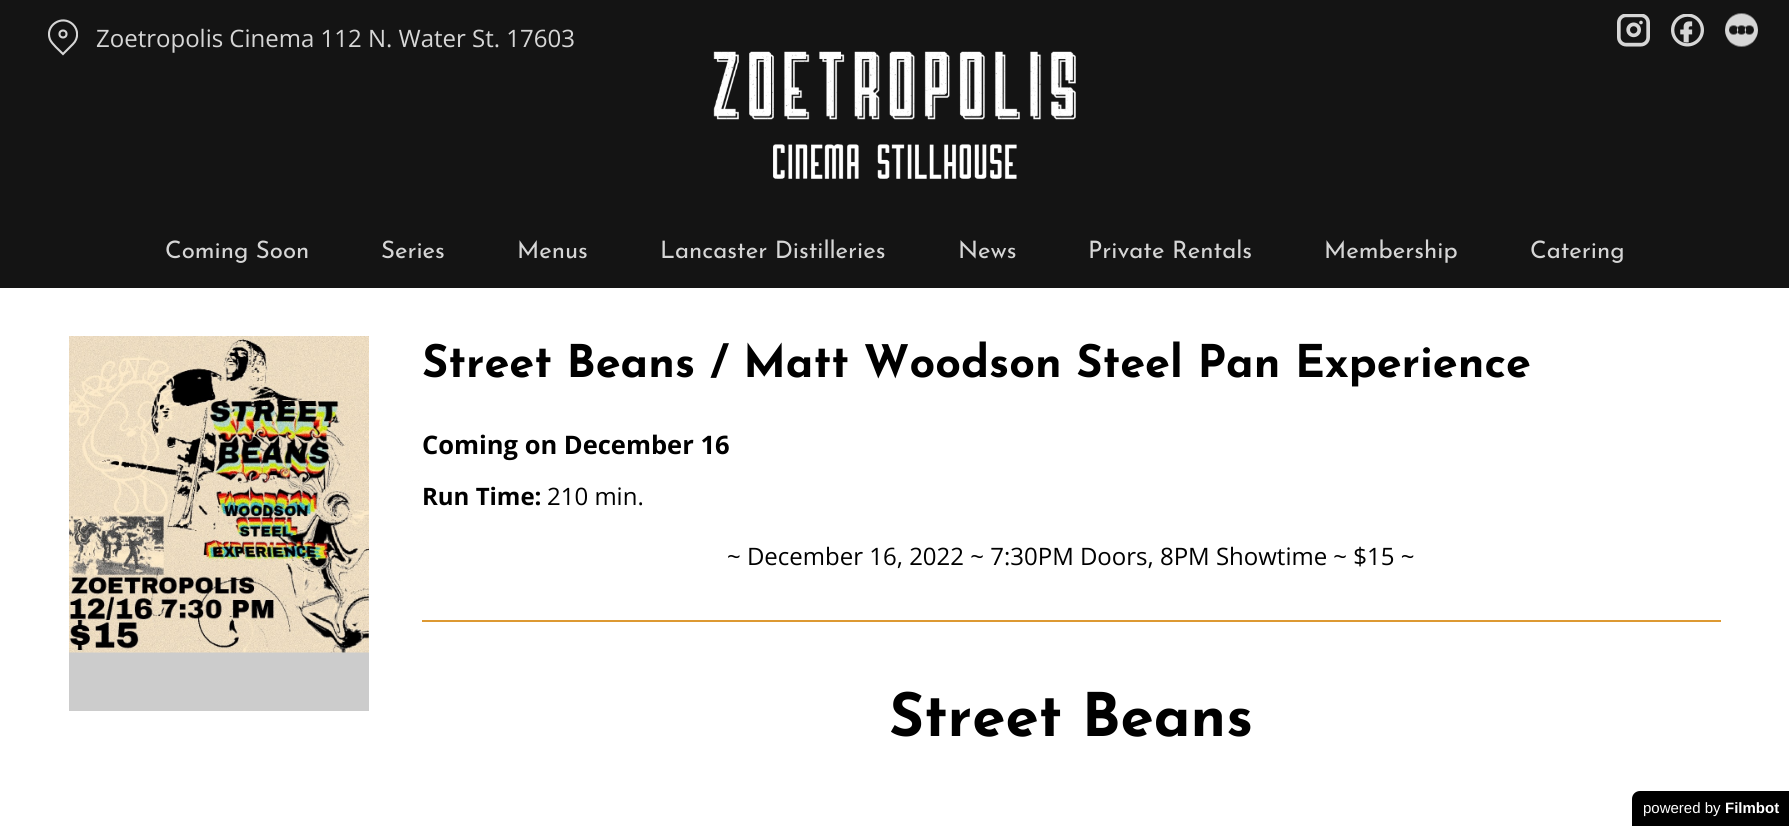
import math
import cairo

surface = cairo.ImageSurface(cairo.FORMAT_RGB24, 1789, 826)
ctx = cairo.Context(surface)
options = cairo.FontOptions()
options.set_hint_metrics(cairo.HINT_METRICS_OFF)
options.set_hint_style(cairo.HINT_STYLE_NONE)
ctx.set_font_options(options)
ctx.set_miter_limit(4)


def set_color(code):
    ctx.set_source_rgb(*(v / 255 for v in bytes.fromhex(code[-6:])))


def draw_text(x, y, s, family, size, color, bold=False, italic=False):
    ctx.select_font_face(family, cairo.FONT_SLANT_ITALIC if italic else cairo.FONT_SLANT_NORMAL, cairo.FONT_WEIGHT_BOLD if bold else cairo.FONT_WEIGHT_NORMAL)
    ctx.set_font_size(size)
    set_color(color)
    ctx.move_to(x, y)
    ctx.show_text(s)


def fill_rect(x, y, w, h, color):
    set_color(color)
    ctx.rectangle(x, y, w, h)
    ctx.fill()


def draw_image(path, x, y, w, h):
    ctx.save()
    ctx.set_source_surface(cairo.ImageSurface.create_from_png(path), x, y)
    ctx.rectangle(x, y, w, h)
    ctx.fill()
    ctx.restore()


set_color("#ffffff")
ctx.paint()
fill_rect(0, 0, 1789, 288, "#141414")
ctx.save()
ctx.rectangle(48, 12, 30, 51)
ctx.clip()
ctx.new_path()
ctx.move_to(73, 24.5)
ctx.curve_to(78.5, 30, 78.5, 38.5, 73, 44)
ctx.line_to(63, 54)
ctx.curve_to(59.5, 50.5, 52, 44, 50, 39.5)
ctx.curve_to(44.5, 25.5, 62, 14, 73, 24.5)
ctx.close_path()
set_color("#d6d6d6")
ctx.set_line_width(2.1)
ctx.stroke()
ctx.restore()
ctx.arc(63, 34, 3.5, 0, 2 * math.pi)
set_color("#d6d6d6")
ctx.set_line_width(2.1)
ctx.stroke()
draw_text(96, 47, "Zoetropolis Cinema 112 N. Water St. 17603", "Open Sans", 24, "#d6d6d6")
draw_image("assets/img1.png", 1617, 14, 33, 33)
draw_image("assets/img2.png", 1671, 14, 33, 33)
draw_image("assets/img3.png", 1725, 13, 33, 34)
draw_image("assets/img4.png", 713, 51, 363, 128)
draw_text(165, 258, "Coming Soon", "Josefin Sans", 24, "#d6d6d6")
draw_text(381, 258, "Series", "Josefin Sans", 24, "#d6d6d6")
draw_text(517, 258, "Menus", "Josefin Sans", 24, "#d6d6d6")
draw_text(660, 258, "Lancaster Distilleries", "Josefin Sans", 24, "#d6d6d6")
draw_text(958, 258, "News", "Josefin Sans", 24, "#d6d6d6")
draw_text(1088, 258, "Private Rentals", "Josefin Sans", 24, "#d6d6d6")
draw_text(1324, 258, "Membership", "Josefin Sans", 24, "#d6d6d6")
draw_text(1530, 258, "Catering", "Josefin Sans", 24, "#d6d6d6")
fill_rect(69, 652, 300, 59, "#cccccc")
draw_image("assets/img5.png", 69, 336, 300, 317)
draw_text(422, 377, "Street Beans / Matt Woodson Steel Pan Experience", "Josefin Sans", 45, "#000000", bold=True)
draw_text(422, 454, "Coming on December 16", "Open Sans", 25.5, "#000000", bold=True)
draw_text(422, 505, "Run Time:", "Open Sans", 24, "#000000", bold=True)
draw_text(547, 505, "210 min.", "Open Sans", 24, "#000000")
draw_text(727, 565, "~ December 16, 2022 ~ 7:30PM Doors, 8PM Showtime ~ $15 ~", "Open Sans", 24, "#000000")
fill_rect(422, 620, 1299, 2, "#dd9933")
draw_text(889, 736, "Street Beans", "Josefin Sans", 60, "#000000", bold=True)
ctx.new_path()
ctx.move_to(1640, 791)
ctx.line_to(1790, 791)
ctx.line_to(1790, 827)
ctx.line_to(1632, 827)
ctx.line_to(1632, 799)
ctx.curve_to(1632, 794.5, 1635.5, 791, 1640, 791)
ctx.close_path()
ctx.fill()
draw_text(1643, 813, "powered by", "Liberation Sans", 15, "#ffffff")
draw_text(1725, 813, "Filmbot", "Liberation Sans", 15, "#ffffff", bold=True)
surface.write_to_png("output.png")
